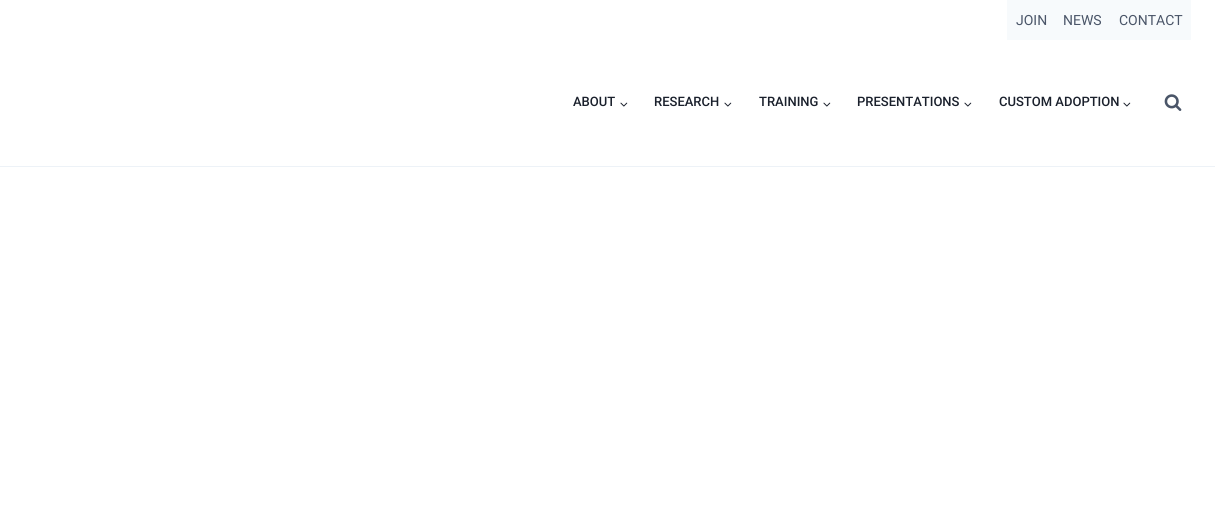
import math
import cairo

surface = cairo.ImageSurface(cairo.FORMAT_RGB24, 1215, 517)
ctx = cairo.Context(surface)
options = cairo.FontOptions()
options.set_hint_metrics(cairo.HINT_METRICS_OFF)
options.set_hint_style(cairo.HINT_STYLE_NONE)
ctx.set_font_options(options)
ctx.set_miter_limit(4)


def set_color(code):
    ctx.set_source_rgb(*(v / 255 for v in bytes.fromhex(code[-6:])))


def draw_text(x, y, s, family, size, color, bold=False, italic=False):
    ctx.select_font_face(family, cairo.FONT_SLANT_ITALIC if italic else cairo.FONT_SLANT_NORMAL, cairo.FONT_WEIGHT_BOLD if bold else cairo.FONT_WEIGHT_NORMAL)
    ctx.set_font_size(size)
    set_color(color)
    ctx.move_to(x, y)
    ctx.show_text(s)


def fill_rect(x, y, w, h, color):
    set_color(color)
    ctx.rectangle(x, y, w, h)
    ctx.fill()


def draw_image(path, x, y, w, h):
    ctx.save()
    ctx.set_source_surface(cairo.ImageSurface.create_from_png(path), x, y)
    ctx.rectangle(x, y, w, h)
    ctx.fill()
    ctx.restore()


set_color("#ffffff")
ctx.paint()
fill_rect(1007, 0, 184, 40, "#f7fafc")
draw_text(1016, 25, "JOIN", "Roboto", 14, "#4a5568")
draw_text(1063, 25, "NEWS", "Roboto", 14, "#4a5568")
draw_text(1119, 25, "CONTACT", "Roboto", 14, "#4a5568")
fill_rect(0, 166, 1215, 1, "#edf2f7")
draw_text(573, 106, "ABOUT", "Roboto Medium", 13, "#1a202c")
draw_image("assets/img1.png", 620, 102, 8, 5)
draw_text(654, 106, "RESEARCH", "Roboto Medium", 13, "#1a202c")
draw_image("assets/img1.png", 724, 102, 8, 5)
draw_text(759, 106, "TRAINING", "Roboto Medium", 13, "#1a202c")
draw_image("assets/img1.png", 823, 102, 8, 5)
draw_text(857, 106, "PRESENTATIONS", "Roboto Medium", 13, "#1a202c")
draw_image("assets/img1.png", 964, 102, 8, 5)
draw_text(999, 106, "CUSTOM ADOPTION", "Roboto Medium", 13, "#1a202c")
draw_image("assets/img1.png", 1123, 102, 8, 5)
draw_image("assets/img2.png", 1164, 94, 18, 17)
surface.write_to_png("output.png")
